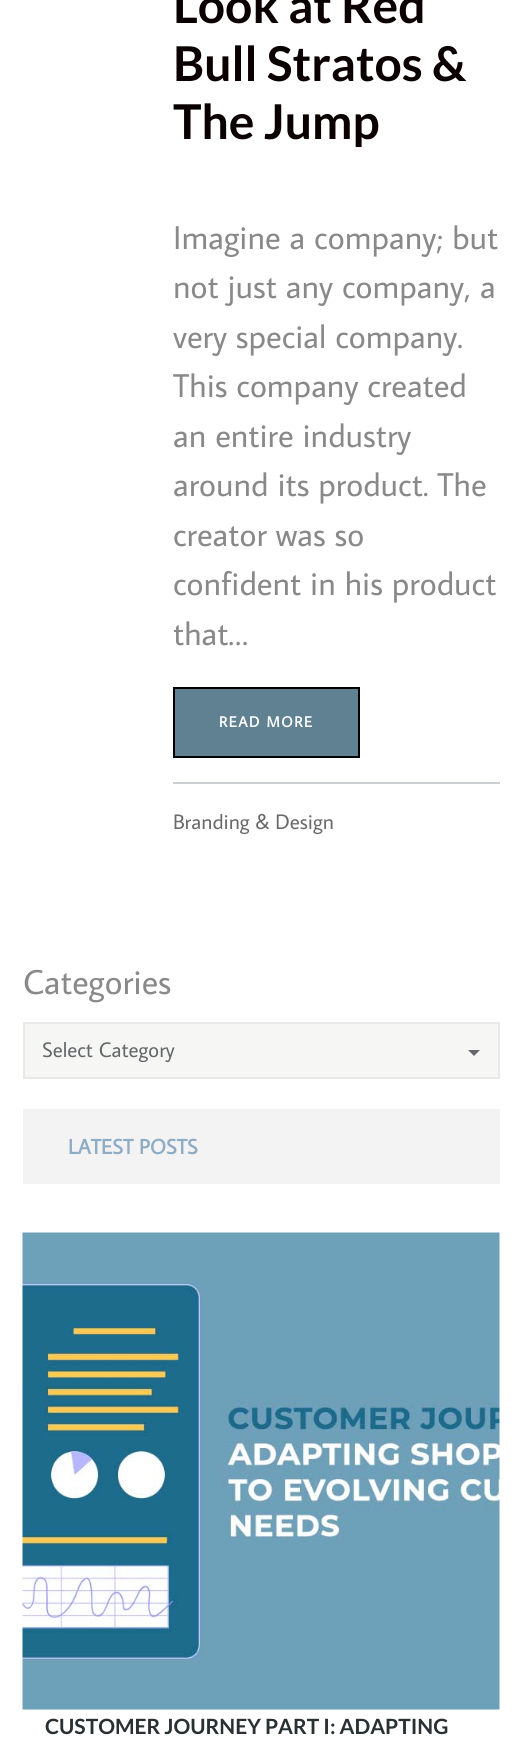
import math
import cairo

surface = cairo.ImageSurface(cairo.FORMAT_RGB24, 521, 1751)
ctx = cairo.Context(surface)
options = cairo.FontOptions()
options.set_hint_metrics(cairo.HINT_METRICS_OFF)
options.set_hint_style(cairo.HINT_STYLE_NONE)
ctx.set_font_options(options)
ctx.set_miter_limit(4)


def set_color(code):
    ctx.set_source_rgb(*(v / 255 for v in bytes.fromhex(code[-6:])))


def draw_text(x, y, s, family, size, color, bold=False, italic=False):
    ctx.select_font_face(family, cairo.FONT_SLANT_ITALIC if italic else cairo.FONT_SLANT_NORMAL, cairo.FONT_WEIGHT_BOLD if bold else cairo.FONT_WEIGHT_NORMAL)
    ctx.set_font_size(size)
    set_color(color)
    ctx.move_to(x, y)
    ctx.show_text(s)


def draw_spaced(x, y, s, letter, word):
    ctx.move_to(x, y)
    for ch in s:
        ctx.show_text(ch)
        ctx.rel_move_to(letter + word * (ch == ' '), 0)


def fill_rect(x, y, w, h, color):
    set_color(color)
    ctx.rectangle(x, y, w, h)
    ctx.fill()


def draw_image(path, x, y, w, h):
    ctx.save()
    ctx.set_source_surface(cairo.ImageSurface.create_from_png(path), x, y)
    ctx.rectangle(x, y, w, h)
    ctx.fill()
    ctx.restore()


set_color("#ffffff")
ctx.paint()
draw_text(173, 23, "Look at Red", "Lato", 48, "#0a0000", bold=True)
draw_text(173, 81, "Bull Stratos &", "Lato", 48, "#0a0000", bold=True)
draw_text(173, 139, "The Jump", "Lato", 48, "#0a0000", bold=True)
draw_text(173, 249, "Imagine a company; but", "Average Sans", 33, "#898989")
draw_text(173, 298, "not just any company, a", "Average Sans", 33, "#898989")
draw_text(173, 348, "very special company.", "Average Sans", 33, "#898989")
draw_text(173, 397, "This company created", "Average Sans", 33, "#898989")
draw_text(173, 447, "an entire industry", "Average Sans", 33, "#898989")
draw_text(173, 496, "around its product. The", "Average Sans", 33, "#898989")
draw_text(173, 546, "creator was so", "Average Sans", 33, "#898989")
draw_text(173, 595, "confident in his product", "Average Sans", 33, "#898989")
draw_text(173, 645, "that…", "Average Sans", 33, "#898989")
set_color("#5f8191")
ctx.rectangle(174, 688, 185, 69)
ctx.fill_preserve()
set_color("#000000")
ctx.stroke()
ctx.select_font_face("Average Sans", cairo.FONT_SLANT_NORMAL, cairo.FONT_WEIGHT_BOLD)
ctx.set_font_size(15)
set_color("#ffffff")
draw_spaced(219, 727, "READ MORE", 1.5, 0)
fill_rect(173, 782, 327, 2, "#cbcfd3")
draw_text(173, 829, "Branding & Design", "Average Sans", 21, "#6a6a6a")
draw_text(23, 994, "Categories", "Average Sans", 34.5, "#898989")
set_color("#f6f6f5")
ctx.rectangle(24, 1023, 475, 55)
ctx.fill_preserve()
set_color("#e9e9e9")
ctx.stroke()
draw_text(42, 1057, "Select Category", "Average Sans", 21, "#64686b")
ctx.new_path()
ctx.move_to(468, 1050)
ctx.line_to(480, 1050)
ctx.line_to(474, 1056)
ctx.close_path()
ctx.fill()
fill_rect(23, 1109, 477, 75, "#f3f3f4")
draw_text(68, 1154, "LATEST POSTS", "Average Sans", 21, "#8eacc4", bold=True)
draw_image("assets/img1.png", 22, 1232, 478, 478)
draw_text(45, 1734, "CUSTOMER JOURNEY PART I: ADAPTING", "Lato", 21, "#283033", bold=True)
surface.write_to_png("output.png")
